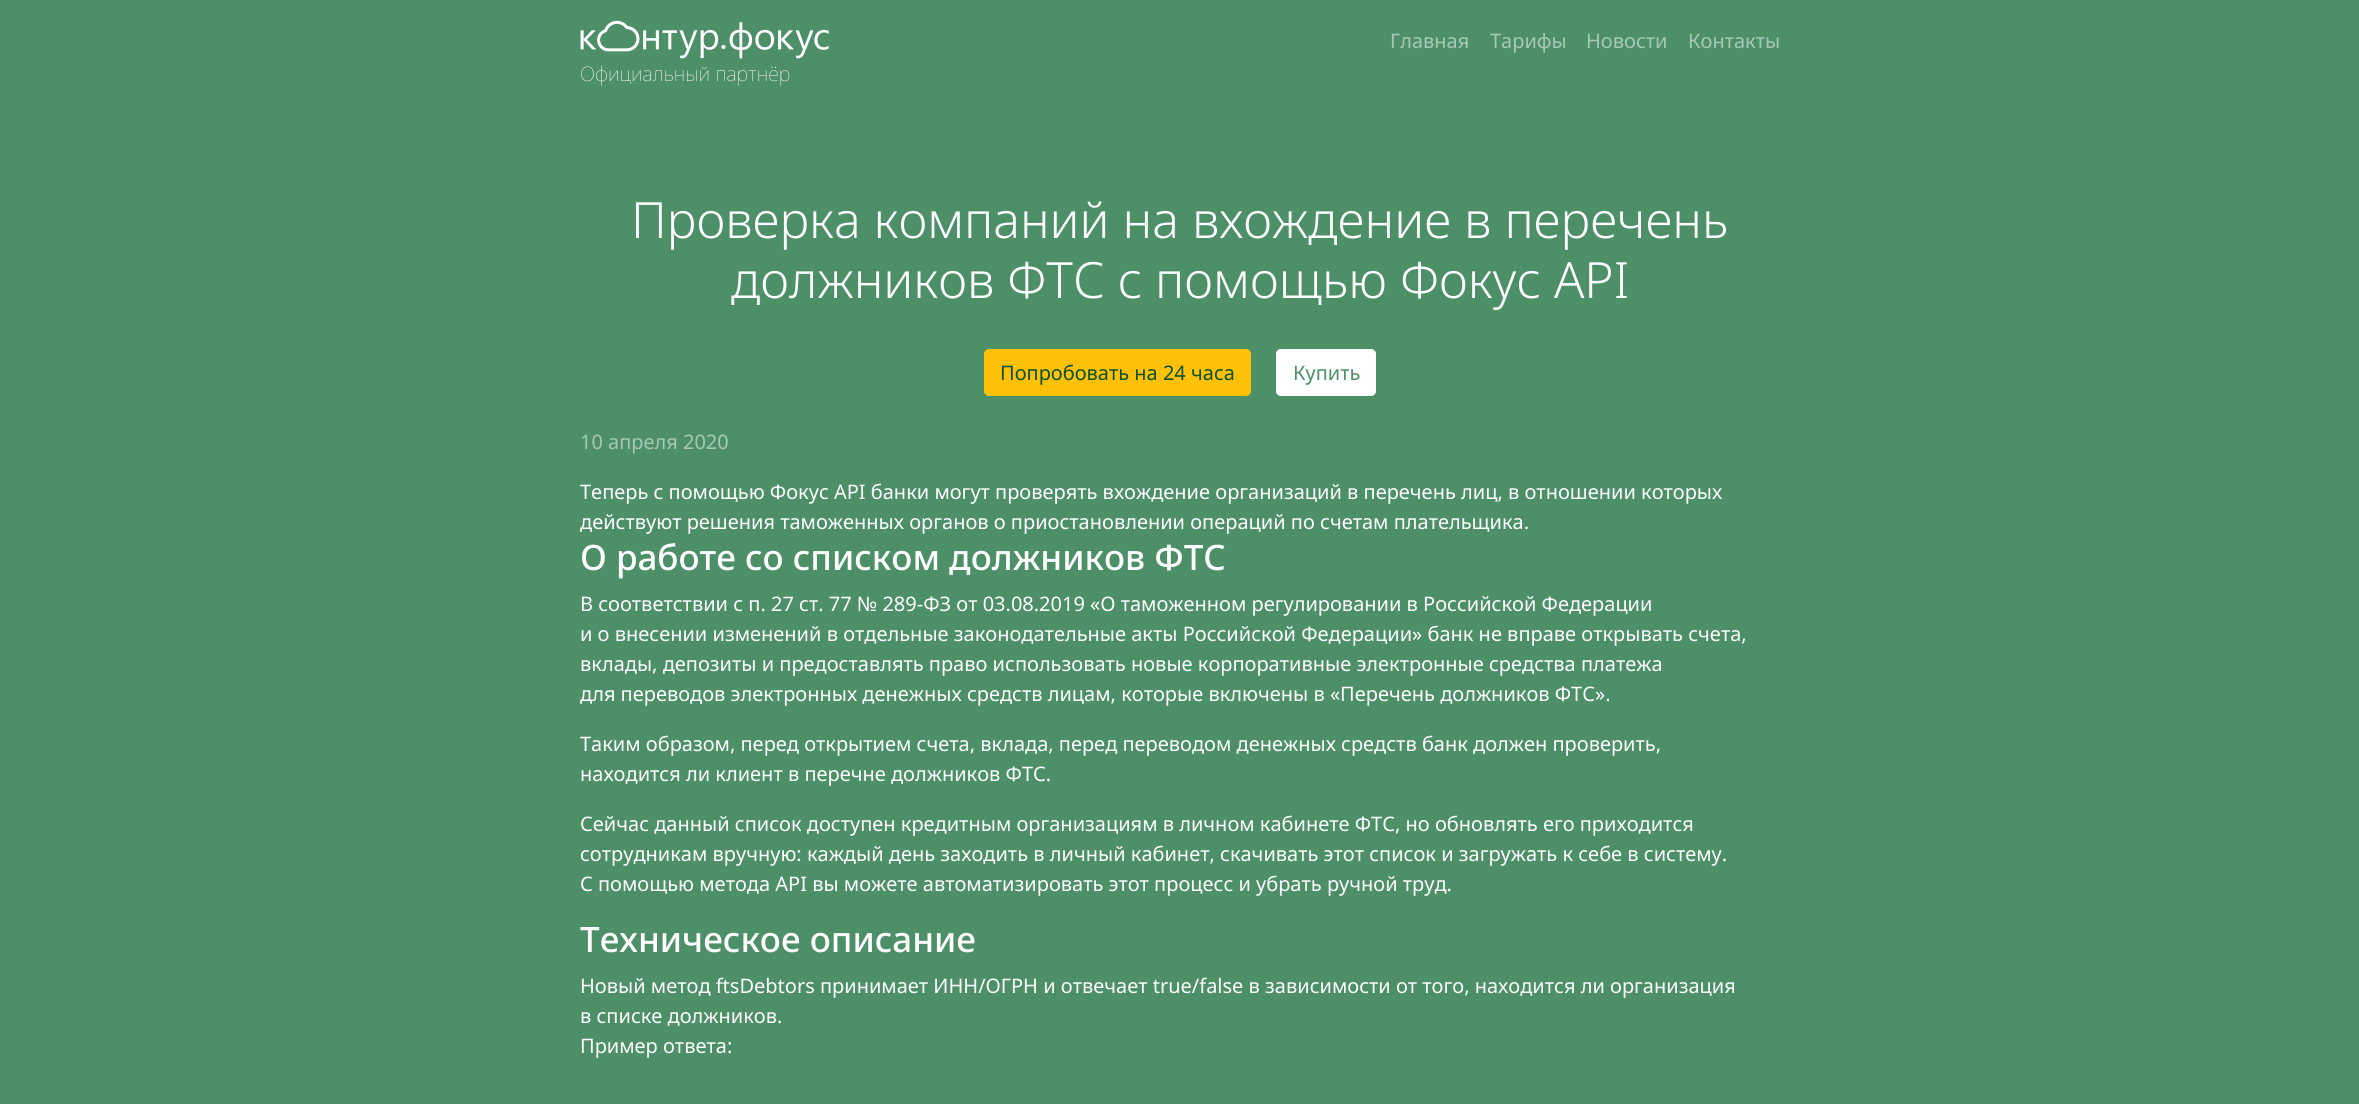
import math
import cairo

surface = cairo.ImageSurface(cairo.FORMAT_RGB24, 2359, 1104)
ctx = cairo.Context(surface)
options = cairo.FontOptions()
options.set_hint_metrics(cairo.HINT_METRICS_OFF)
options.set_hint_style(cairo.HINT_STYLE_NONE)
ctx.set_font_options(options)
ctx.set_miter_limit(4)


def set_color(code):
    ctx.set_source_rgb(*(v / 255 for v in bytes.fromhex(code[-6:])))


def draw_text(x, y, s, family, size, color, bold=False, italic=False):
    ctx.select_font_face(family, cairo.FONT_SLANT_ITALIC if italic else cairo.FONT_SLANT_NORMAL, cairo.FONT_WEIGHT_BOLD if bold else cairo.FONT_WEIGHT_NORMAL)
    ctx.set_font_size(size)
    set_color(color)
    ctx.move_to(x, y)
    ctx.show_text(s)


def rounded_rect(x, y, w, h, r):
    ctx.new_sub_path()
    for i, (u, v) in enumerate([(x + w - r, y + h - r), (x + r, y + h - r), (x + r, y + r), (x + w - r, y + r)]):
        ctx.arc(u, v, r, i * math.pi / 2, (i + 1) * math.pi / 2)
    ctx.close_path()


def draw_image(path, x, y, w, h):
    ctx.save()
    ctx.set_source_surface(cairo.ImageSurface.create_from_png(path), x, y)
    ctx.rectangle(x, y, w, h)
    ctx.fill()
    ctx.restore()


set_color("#4d9068")
ctx.paint()
draw_text(1390, 48, "Главная", "Noto Sans", 20, "#a6c8b4")
draw_text(1490, 48, "Тарифы", "Noto Sans", 20, "#a6c8b4")
draw_text(1586, 48, "Новости", "Noto Sans", 20, "#a6c8b4")
draw_text(1688, 48, "Контакты", "Noto Sans", 20, "#a6c8b4")
draw_image("assets/img1.png", 580, 20, 249, 39)
draw_text(580, 81, "Официальный партнёр", "Noto Sans Thin", 20, "#ffffff")
draw_text(631, 238, "Проверка компаний на вхождение в перечень", "Noto Sans Light", 50, "#ffffff")
draw_text(731, 298, "должников ФТС с помощью Фокус API", "Noto Sans Light", 50, "#ffffff")
set_color("#ffc107")
rounded_rect(984.5, 349.5, 266, 46, 4.5)
ctx.fill_preserve()
ctx.set_line_width(1)
ctx.stroke()
draw_text(1000, 380, "Попробовать на 24 часа", "Noto Sans", 20, "#085026")
set_color("#ffffff")
rounded_rect(1276.5, 349.5, 99, 46, 4.5)
ctx.fill_preserve()
ctx.stroke()
draw_text(1293, 380, "Купить", "Noto Sans", 20, "#4c9068")
draw_text(580, 449, "10 апреля 2020", "Noto Sans", 20, "#a6c8b4")
draw_text(580, 499, "Теперь с помощью Фокус API банки могут проверять вхождение организаций в перечень лиц, в отношении которых", "Noto Sans", 20, "#ffffff")
draw_text(580, 529, "действуют решения таможенных органов о приостановлении операций по счетам плательщика.", "Noto Sans", 20, "#ffffff")
draw_text(580, 570, "О работе со списком должников ФТС", "Noto Sans Medium", 35, "#ffffff")
draw_text(580, 611, "В соответствии с п. 27 ст. 77 № 289-ФЗ от 03.08.2019 «О таможенном регулировании в Российской Федерации", "Noto Sans", 20, "#ffffff")
draw_text(580, 641, "и о внесении изменений в отдельные законодательные акты Российской Федерации» банк не вправе открывать счета,", "Noto Sans", 20, "#ffffff")
draw_text(580, 671, "вклады, депозиты и предоставлять право использовать новые корпоративные электронные средства платежа", "Noto Sans", 20, "#ffffff")
draw_text(580, 701, "для переводов электронных денежных средств лицам, которые включены в «Перечень должников ФТС».", "Noto Sans", 20, "#ffffff")
draw_text(580, 751, "Таким образом, перед открытием счета, вклада, перед переводом денежных средств банк должен проверить,", "Noto Sans", 20, "#ffffff")
draw_text(580, 781, "находится ли клиент в перечне должников ФТС.", "Noto Sans", 20, "#ffffff")
draw_text(580, 831, "Сейчас данный список доступен кредитным организациям в личном кабинете ФТС, но обновлять его приходится", "Noto Sans", 20, "#ffffff")
draw_text(580, 861, "сотрудникам вручную: каждый день заходить в личный кабинет, скачивать этот список и загружать к себе в систему.", "Noto Sans", 20, "#ffffff")
draw_text(580, 891, "С помощью метода API вы можете автоматизировать этот процесс и убрать ручной труд.", "Noto Sans", 20, "#ffffff")
draw_text(580, 952, "Техническое описание", "Noto Sans Medium", 35, "#ffffff")
draw_text(580, 993, "Новый метод ftsDebtors принимает ИНН/ОГРН и отвечает true/false в зависимости от того, находится ли организация", "Noto Sans", 20, "#ffffff")
draw_text(580, 1023, "в списке должников.", "Noto Sans", 20, "#ffffff")
draw_text(580, 1053, "Пример ответа:", "Noto Sans", 20, "#ffffff")
surface.write_to_png("output.png")
